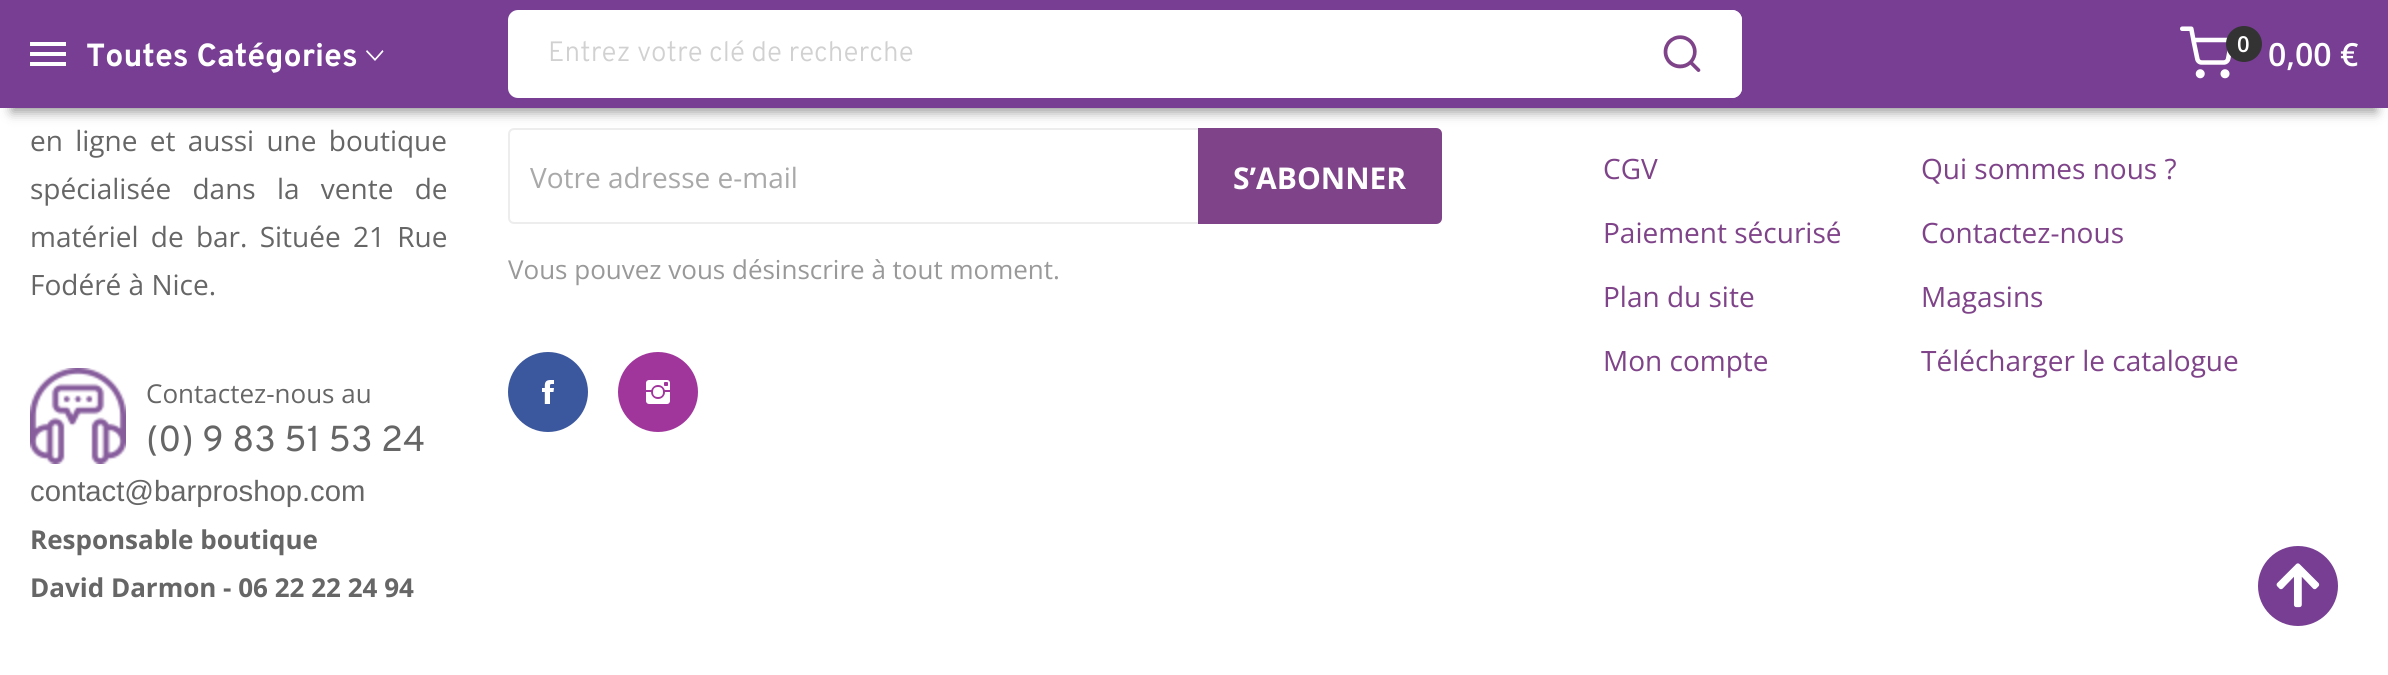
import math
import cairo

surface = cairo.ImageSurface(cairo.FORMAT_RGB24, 2388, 675)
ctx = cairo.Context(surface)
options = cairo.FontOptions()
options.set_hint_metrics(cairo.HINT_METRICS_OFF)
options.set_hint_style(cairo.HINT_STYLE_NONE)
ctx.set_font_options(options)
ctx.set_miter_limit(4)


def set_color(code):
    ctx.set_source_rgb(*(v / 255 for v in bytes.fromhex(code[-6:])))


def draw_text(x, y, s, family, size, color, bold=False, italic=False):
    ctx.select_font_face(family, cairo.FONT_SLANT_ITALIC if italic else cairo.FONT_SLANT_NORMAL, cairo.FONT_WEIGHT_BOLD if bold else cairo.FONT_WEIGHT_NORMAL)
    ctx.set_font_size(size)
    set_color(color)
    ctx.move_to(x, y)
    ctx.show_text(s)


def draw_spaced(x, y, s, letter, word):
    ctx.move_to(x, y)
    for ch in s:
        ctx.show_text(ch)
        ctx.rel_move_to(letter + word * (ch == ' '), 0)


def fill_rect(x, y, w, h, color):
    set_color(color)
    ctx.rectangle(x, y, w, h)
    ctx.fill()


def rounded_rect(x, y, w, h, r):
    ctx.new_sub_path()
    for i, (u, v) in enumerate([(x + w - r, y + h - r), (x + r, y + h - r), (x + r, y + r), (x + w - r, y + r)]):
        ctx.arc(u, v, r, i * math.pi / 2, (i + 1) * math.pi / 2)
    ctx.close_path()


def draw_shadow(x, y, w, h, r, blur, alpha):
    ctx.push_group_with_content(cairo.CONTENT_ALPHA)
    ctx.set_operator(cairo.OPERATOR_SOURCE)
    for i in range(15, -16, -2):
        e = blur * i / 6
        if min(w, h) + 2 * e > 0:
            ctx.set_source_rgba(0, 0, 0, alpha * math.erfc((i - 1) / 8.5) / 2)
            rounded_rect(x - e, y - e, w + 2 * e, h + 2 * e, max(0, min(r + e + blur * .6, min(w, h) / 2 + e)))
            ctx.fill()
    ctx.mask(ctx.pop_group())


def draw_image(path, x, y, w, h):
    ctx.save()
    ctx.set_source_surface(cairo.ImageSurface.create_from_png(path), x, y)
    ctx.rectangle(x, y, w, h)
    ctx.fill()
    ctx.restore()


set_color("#ffffff")
ctx.paint()
rounded_rect(509, 129, 932, 94, 5)
set_color("#ededed")
ctx.stroke()
set_color("#7f4389")
ctx.new_path()
ctx.move_to(1198, 128)
ctx.line_to(1436, 128)
ctx.curve_to(1439.5, 128, 1442, 130.5, 1442, 134)
ctx.line_to(1442, 218)
ctx.curve_to(1442, 221.5, 1439.5, 224, 1436, 224)
ctx.line_to(1198, 224)
ctx.close_path()
ctx.fill()
set_color("#000000")
draw_shadow(12, 28, 2364, 84, 0, 6, 0.4)
fill_rect(0, 0, 2388, 108, "#773e94")
set_color("#ffffff")
ctx.new_path()
ctx.move_to(30, 66)
ctx.line_to(30, 62)
ctx.line_to(66, 62)
ctx.line_to(66, 66)
ctx.close_path()
ctx.move_to(30, 56)
ctx.line_to(30, 52)
ctx.line_to(66, 52)
ctx.line_to(66, 56)
ctx.close_path()
ctx.move_to(30, 42)
ctx.line_to(66, 42)
ctx.line_to(66, 46)
ctx.line_to(30, 46)
ctx.close_path()
ctx.fill()
draw_text(86, 66, "Toutes Catégories", "Overpass", 32, "#ffffff", bold=True)
ctx.new_path()
ctx.move_to(382.5, 50)
ctx.line_to(383.5, 51.5)
ctx.line_to(375, 61)
ctx.line_to(366, 51.5)
ctx.line_to(367, 50)
ctx.line_to(375, 58.5)
ctx.close_path()
ctx.fill()
rounded_rect(508, 10, 1234, 88, 10)
ctx.fill()
draw_text(548, 61, "Entrez votre clé de recherche", "Overpass Light", 28, "#d1d1d1")
set_color("#ffffff")
ctx.new_path()
ctx.move_to(1622, 10)
ctx.line_to(1732, 10)
ctx.curve_to(1737.5, 10, 1742, 14.5, 1742, 20)
ctx.line_to(1742, 88)
ctx.curve_to(1742, 93.5, 1737.5, 98, 1732, 98)
ctx.line_to(1622, 98)
ctx.close_path()
ctx.fill()
draw_image("assets/img1.png", 1663, 35, 38, 37)
draw_image("assets/img2.png", 2180, 26, 51, 53)
set_color("#333333")
ctx.arc(2244, 44, 18, 0, 2 * math.pi)
ctx.fill()
draw_text(2237, 52, "0", "Open Sans SemiBold", 22, "#ffffff")
draw_text(2268, 66, "0,00 €", "Open Sans SemiBold", 32, "#ffffff")
ctx.select_font_face("Open Sans")
ctx.set_font_size(28)
set_color("#666666")
draw_spaced(30, 151, "en ligne et aussi une boutique", 0, 5)
draw_spaced(30, 199, "spécialisée dans la vente de", 0, 14)
draw_spaced(30, 247, "matériel de bar. Située 21 Rue", 0, 5)
draw_text(30, 295, "Fodéré à Nice.", "Open Sans", 28, "#666666")
draw_image("assets/img3.png", 30, 368, 96, 96)
draw_text(146, 403, "Contactez-nous au", "Open Sans", 26, "#666666")
draw_text(146, 451, "(0) 9 83 51 53 24", "Overpass", 36, "#666666")
draw_text(30, 501, "contact@barproshop.com", "Liberation Sans", 29.25, "#666666")
draw_text(30, 549, "Responsable boutique", "Open Sans", 26, "#666666", bold=True)
draw_text(30, 597, "David Darmon - 06 22 22 24 94", "Open Sans", 26, "#666666", bold=True)
draw_text(530, 188, "Votre adresse e-mail", "Open Sans", 28, "#a9a9a9")
draw_text(1233, 189, "S’ABONNER", "Open Sans", 30, "#ffffff", bold=True)
draw_text(508, 279, "Vous pouvez vous désinscrire à tout moment.", "Open Sans", 26, "#999999")
set_color("#3b579d")
ctx.new_path()
ctx.arc(548, 392, 40, 0, 2 * math.pi)
ctx.fill()
draw_image("assets/img4.png", 542, 380, 12, 24)
set_color("#a0369c")
ctx.arc(658, 392, 40, 0, 2 * math.pi)
ctx.fill()
draw_image("assets/img5.png", 646, 380, 24, 24)
draw_text(1603, 179, "CGV", "Open Sans", 28, "#7f4389")
draw_text(1921, 179, "Qui sommes nous ?", "Open Sans", 28, "#7f4389")
draw_text(1603, 243, "Paiement sécurisé", "Open Sans", 28, "#7f4389")
draw_text(1921, 243, "Contactez-nous", "Open Sans", 28, "#7f4389")
draw_text(1603, 307, "Plan du site", "Open Sans", 28, "#7f4389")
draw_text(1921, 307, "Magasins", "Open Sans", 28, "#7f4389")
draw_text(1603, 371, "Mon compte", "Open Sans", 28, "#7f4389")
draw_text(1921, 371, "Télécharger le catalogue", "Open Sans", 28, "#7f4389")
set_color("#773e94")
ctx.new_path()
ctx.arc(2298, 586, 40, 0, 2 * math.pi)
ctx.fill()
draw_image("assets/img6.png", 2276, 563, 44, 45)
surface.write_to_png("output.png")
